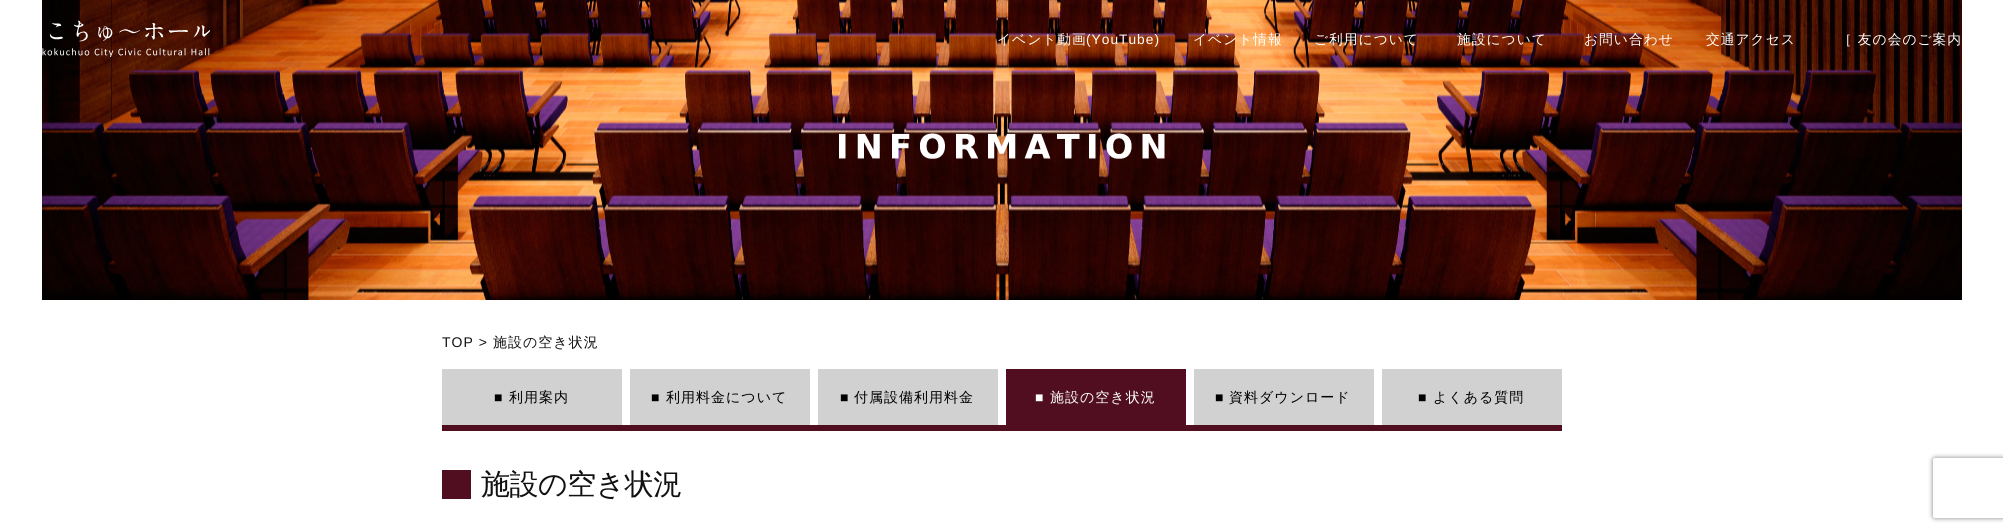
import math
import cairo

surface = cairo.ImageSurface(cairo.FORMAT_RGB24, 2003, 532)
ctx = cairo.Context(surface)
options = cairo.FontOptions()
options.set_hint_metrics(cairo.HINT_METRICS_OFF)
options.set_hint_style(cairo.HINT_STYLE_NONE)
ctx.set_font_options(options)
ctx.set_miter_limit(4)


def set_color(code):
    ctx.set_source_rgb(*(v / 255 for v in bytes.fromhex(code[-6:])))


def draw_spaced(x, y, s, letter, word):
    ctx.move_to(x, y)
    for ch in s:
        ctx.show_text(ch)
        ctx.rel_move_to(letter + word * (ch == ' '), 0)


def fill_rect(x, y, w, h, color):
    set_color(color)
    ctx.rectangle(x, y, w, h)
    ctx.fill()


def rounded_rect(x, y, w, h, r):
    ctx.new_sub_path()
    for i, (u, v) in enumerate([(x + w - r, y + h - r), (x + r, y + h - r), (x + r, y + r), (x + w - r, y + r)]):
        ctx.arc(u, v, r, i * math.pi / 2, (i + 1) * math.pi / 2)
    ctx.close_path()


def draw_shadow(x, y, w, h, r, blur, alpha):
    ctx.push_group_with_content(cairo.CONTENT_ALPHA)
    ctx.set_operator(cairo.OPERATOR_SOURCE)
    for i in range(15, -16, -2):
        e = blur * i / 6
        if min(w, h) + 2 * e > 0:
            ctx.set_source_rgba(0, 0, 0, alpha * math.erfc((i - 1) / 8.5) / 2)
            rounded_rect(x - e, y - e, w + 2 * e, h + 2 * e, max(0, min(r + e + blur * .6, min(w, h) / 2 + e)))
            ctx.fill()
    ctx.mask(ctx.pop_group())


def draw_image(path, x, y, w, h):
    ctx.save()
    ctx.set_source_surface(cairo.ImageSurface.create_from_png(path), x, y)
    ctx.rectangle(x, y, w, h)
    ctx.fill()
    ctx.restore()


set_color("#ffffff")
ctx.paint()
draw_image("assets/img2.png", 42, 0, 1920, 300)
draw_image("assets/img1.png", 42, 20, 168, 37)
ctx.select_font_face("WenQuanYi Zen Hei Medium")
ctx.set_font_size(13.75)
set_color("#ffffff")
draw_spaced(997, 44, "イベント動画", 1, 0)
ctx.select_font_face("Liberation Sans")
draw_spaced(1086, 44, "(YouTube)", 1, 0)
ctx.select_font_face("WenQuanYi Zen Hei Medium")
draw_spaced(1193, 44, "イベント情報", 1, 0)
draw_spaced(1314, 44, "ご利用について", 1, 0)
draw_spaced(1457, 44, "施設について", 1, 0)
draw_spaced(1584, 44, "お問い合わせ", 1, 0)
draw_spaced(1706, 44, "交通アクセス", 1, 0)
draw_spaced(1838, 44, "［ 友の会のご案内", 1, 0)
draw_image("assets/img3.png", 839, 132, 326, 27)
ctx.select_font_face("Liberation Sans")
ctx.set_font_size(14)
set_color("#111111")
draw_spaced(442, 347, "TOP >", 1, 0)
ctx.select_font_face("WenQuanYi Zen Hei Medium")
draw_spaced(493, 347, "施設の空き状況", 1, 0)
fill_rect(442, 425, 1120, 6, "#500e20")
fill_rect(442, 369, 180, 56, "#d1d1d1")
ctx.select_font_face("Liberation Sans")
set_color("#000000")
draw_spaced(494, 402, "■", 1, 0)
ctx.select_font_face("WenQuanYi Zen Hei Medium")
draw_spaced(509, 402, "利用案内", 1, 0)
fill_rect(630, 369, 180, 56, "#d1d1d1")
ctx.select_font_face("Liberation Sans")
set_color("#000000")
draw_spaced(651, 402, "■", 1, 0)
ctx.select_font_face("WenQuanYi Zen Hei Medium")
draw_spaced(666, 402, "利用料金について", 1, 0)
fill_rect(818, 369, 180, 56, "#d1d1d1")
ctx.select_font_face("Liberation Sans")
set_color("#000000")
draw_spaced(840, 402, "■", 1, 0)
ctx.select_font_face("WenQuanYi Zen Hei Medium")
draw_spaced(854, 402, "付属設備利用料金", 1, 0)
fill_rect(1006, 369, 180, 56, "#500e20")
ctx.select_font_face("Liberation Sans")
set_color("#ffffff")
draw_spaced(1035, 402, "■", 1, 0)
ctx.select_font_face("WenQuanYi Zen Hei Medium")
draw_spaced(1050, 402, "施設の空き状況", 1, 0)
fill_rect(1194, 369, 180, 56, "#d1d1d1")
ctx.select_font_face("Liberation Sans")
set_color("#000000")
draw_spaced(1215, 402, "■", 1, 0)
ctx.select_font_face("WenQuanYi Zen Hei Medium")
draw_spaced(1229, 402, "資料ダウンロード", 1, 0)
fill_rect(1382, 369, 180, 56, "#d1d1d1")
ctx.select_font_face("Liberation Sans")
set_color("#000000")
draw_spaced(1418, 402, "■", 1, 0)
ctx.select_font_face("WenQuanYi Zen Hei Medium")
draw_spaced(1433, 402, "よくある質問", 1, 0)
fill_rect(442, 470, 29, 29, "#500e20")
ctx.set_font_size(29)
set_color("#111111")
draw_spaced(481, 494, "施設の空き状況", -0.5, 0)
ctx.save()
ctx.set_fill_rule(cairo.FILL_RULE_EVEN_ODD)
ctx.new_path()
ctx.move_to(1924, 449)
ctx.line_to(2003, 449)
ctx.line_to(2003, 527)
ctx.line_to(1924, 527)
ctx.close_path()
ctx.move_to(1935, 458)
ctx.line_to(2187, 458)
ctx.curve_to(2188, 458, 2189, 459, 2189, 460)
ctx.line_to(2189, 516)
ctx.curve_to(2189, 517, 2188, 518, 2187, 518)
ctx.line_to(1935, 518)
ctx.curve_to(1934, 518, 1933, 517, 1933, 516)
ctx.line_to(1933, 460)
ctx.curve_to(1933, 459, 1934, 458, 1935, 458)
ctx.close_path()
ctx.clip()
set_color("#808080")
draw_shadow(1933, 458, 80, 60, 2, 2.5, 1)
ctx.restore()
surface.write_to_png("output.png")
